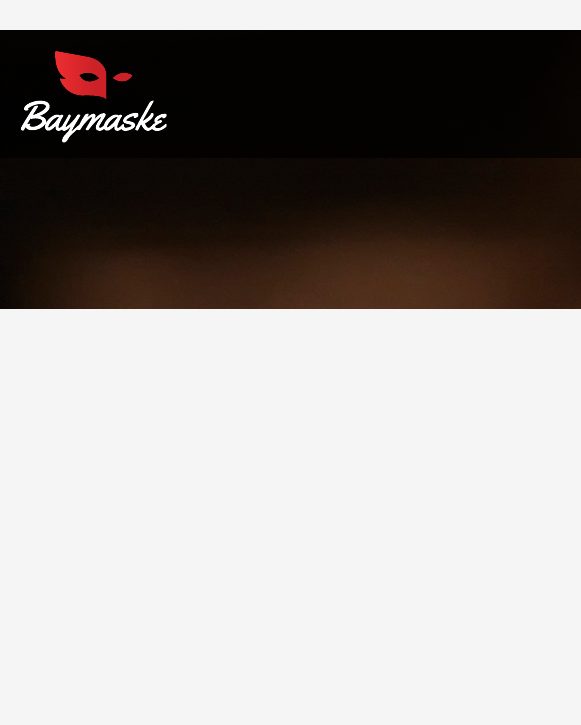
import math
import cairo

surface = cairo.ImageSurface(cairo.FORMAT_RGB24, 581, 725)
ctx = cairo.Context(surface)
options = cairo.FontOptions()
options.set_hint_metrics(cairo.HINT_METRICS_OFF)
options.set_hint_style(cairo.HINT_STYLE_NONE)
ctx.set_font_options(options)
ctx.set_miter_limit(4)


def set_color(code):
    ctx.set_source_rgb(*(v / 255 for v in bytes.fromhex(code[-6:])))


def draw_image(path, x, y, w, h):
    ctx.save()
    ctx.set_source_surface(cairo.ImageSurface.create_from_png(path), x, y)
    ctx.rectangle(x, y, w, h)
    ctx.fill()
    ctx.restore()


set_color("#f5f5f5")
ctx.paint()
draw_image("assets/img1.png", 0, 30, 581, 279)
ctx.set_source_rgba(0, 0, 0, 0.75)
ctx.rectangle(0, 30, 581, 128)
ctx.fill()
draw_image("assets/img2.png", 20, 50, 147, 93)
surface.write_to_png("output.png")
